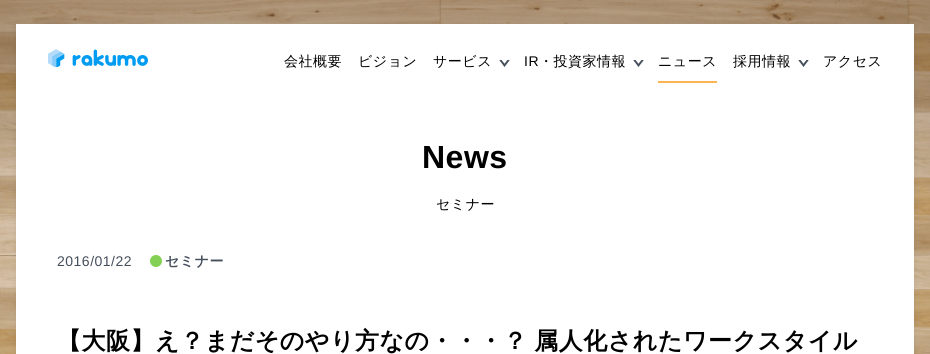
import math
import cairo

surface = cairo.ImageSurface(cairo.FORMAT_RGB24, 930, 354)
ctx = cairo.Context(surface)
options = cairo.FontOptions()
options.set_hint_metrics(cairo.HINT_METRICS_OFF)
options.set_hint_style(cairo.HINT_STYLE_NONE)
ctx.set_font_options(options)
ctx.set_miter_limit(4)


def set_color(code):
    ctx.set_source_rgb(*(v / 255 for v in bytes.fromhex(code[-6:])))


def draw_spaced(x, y, s, letter, word):
    ctx.move_to(x, y)
    for ch in s:
        ctx.show_text(ch)
        ctx.rel_move_to(letter + word * (ch == ' '), 0)


def fill_rect(x, y, w, h, color):
    set_color(color)
    ctx.rectangle(x, y, w, h)
    ctx.fill()


def rounded_rect(x, y, w, h, r):
    ctx.new_sub_path()
    for i, (u, v) in enumerate([(x + w - r, y + h - r), (x + r, y + h - r), (x + r, y + r), (x + w - r, y + r)]):
        ctx.arc(u, v, r, i * math.pi / 2, (i + 1) * math.pi / 2)
    ctx.close_path()


def draw_shadow(x, y, w, h, r, blur, alpha):
    ctx.push_group_with_content(cairo.CONTENT_ALPHA)
    ctx.set_operator(cairo.OPERATOR_SOURCE)
    for i in range(15, -16, -2):
        e = blur * i / 6
        if min(w, h) + 2 * e > 0:
            ctx.set_source_rgba(0, 0, 0, alpha * math.erfc((i - 1) / 8.5) / 2)
            rounded_rect(x - e, y - e, w + 2 * e, h + 2 * e, max(0, min(r + e + blur * .6, min(w, h) / 2 + e)))
            ctx.fill()
    ctx.mask(ctx.pop_group())


def draw_image(path, x, y, w, h):
    ctx.save()
    ctx.set_source_surface(cairo.ImageSurface.create_from_png(path), x, y)
    ctx.rectangle(x, y, w, h)
    ctx.fill()
    ctx.restore()


set_color("#ffffff")
ctx.paint()
draw_image("assets/img1.png", 0, 0, 930, 354)
set_color("#000000")
draw_shadow(16, 24, 898, 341, 0, 3.5, 0.07)
fill_rect(16, 24, 898, 330, "#ffffff")
draw_image("assets/img2.png", 48, 49, 100, 18)
ctx.select_font_face("WenQuanYi Zen Hei Medium")
ctx.set_font_size(14)
set_color("#000000")
draw_spaced(284, 66, "会社概要", 0.5, 0)
draw_spaced(358, 66, "ビジョン", 0.5, 0)
draw_spaced(433, 66, "サービス", 0.5, 0)
draw_image("assets/img3.png", 499, 60, 11, 7)
ctx.select_font_face("Liberation Sans")
draw_spaced(524, 66, "IR", 0.5, 0)
ctx.select_font_face("WenQuanYi Zen Hei Medium")
draw_spaced(539, 66, "・投資家情報", 0.5, 0)
draw_image("assets/img4.png", 633, 60, 11, 7)
draw_spaced(658, 66, "ニュース", 0.5, 0)
fill_rect(658, 81, 59, 2, "#ffb452")
set_color("#000000")
draw_spaced(733, 66, "採用情報", 0.5, 0)
draw_image("assets/img4.png", 798, 60, 11, 7)
draw_spaced(823, 66, "アクセス", 0.5, 0)
ctx.select_font_face("Liberation Sans", cairo.FONT_SLANT_NORMAL, cairo.FONT_WEIGHT_BOLD)
ctx.set_font_size(32)
draw_spaced(422, 168, "News", 0.5, 0)
ctx.select_font_face("WenQuanYi Zen Hei Medium")
ctx.set_font_size(14)
draw_spaced(436, 209, "セミナー", 0.5, 0)
ctx.select_font_face("Liberation Sans")
set_color("#454f5b")
draw_spaced(57, 266, "2016/01/22", 0.5, 0)
set_color("#83d153")
ctx.new_path()
ctx.arc(156, 261, 6, 0, 2 * math.pi)
ctx.fill()
ctx.select_font_face("WenQuanYi Zen Hei", cairo.FONT_SLANT_NORMAL, cairo.FONT_WEIGHT_BOLD)
set_color("#454f5b")
draw_spaced(165, 266, "セミナー", 0.5, 0)
ctx.set_font_size(24)
set_color("#000000")
draw_spaced(57, 349, "【大阪】え？まだそのやり方なの・・・？ 属人化されたワークスタイル", 0.5, -1)
surface.write_to_png("output.png")
